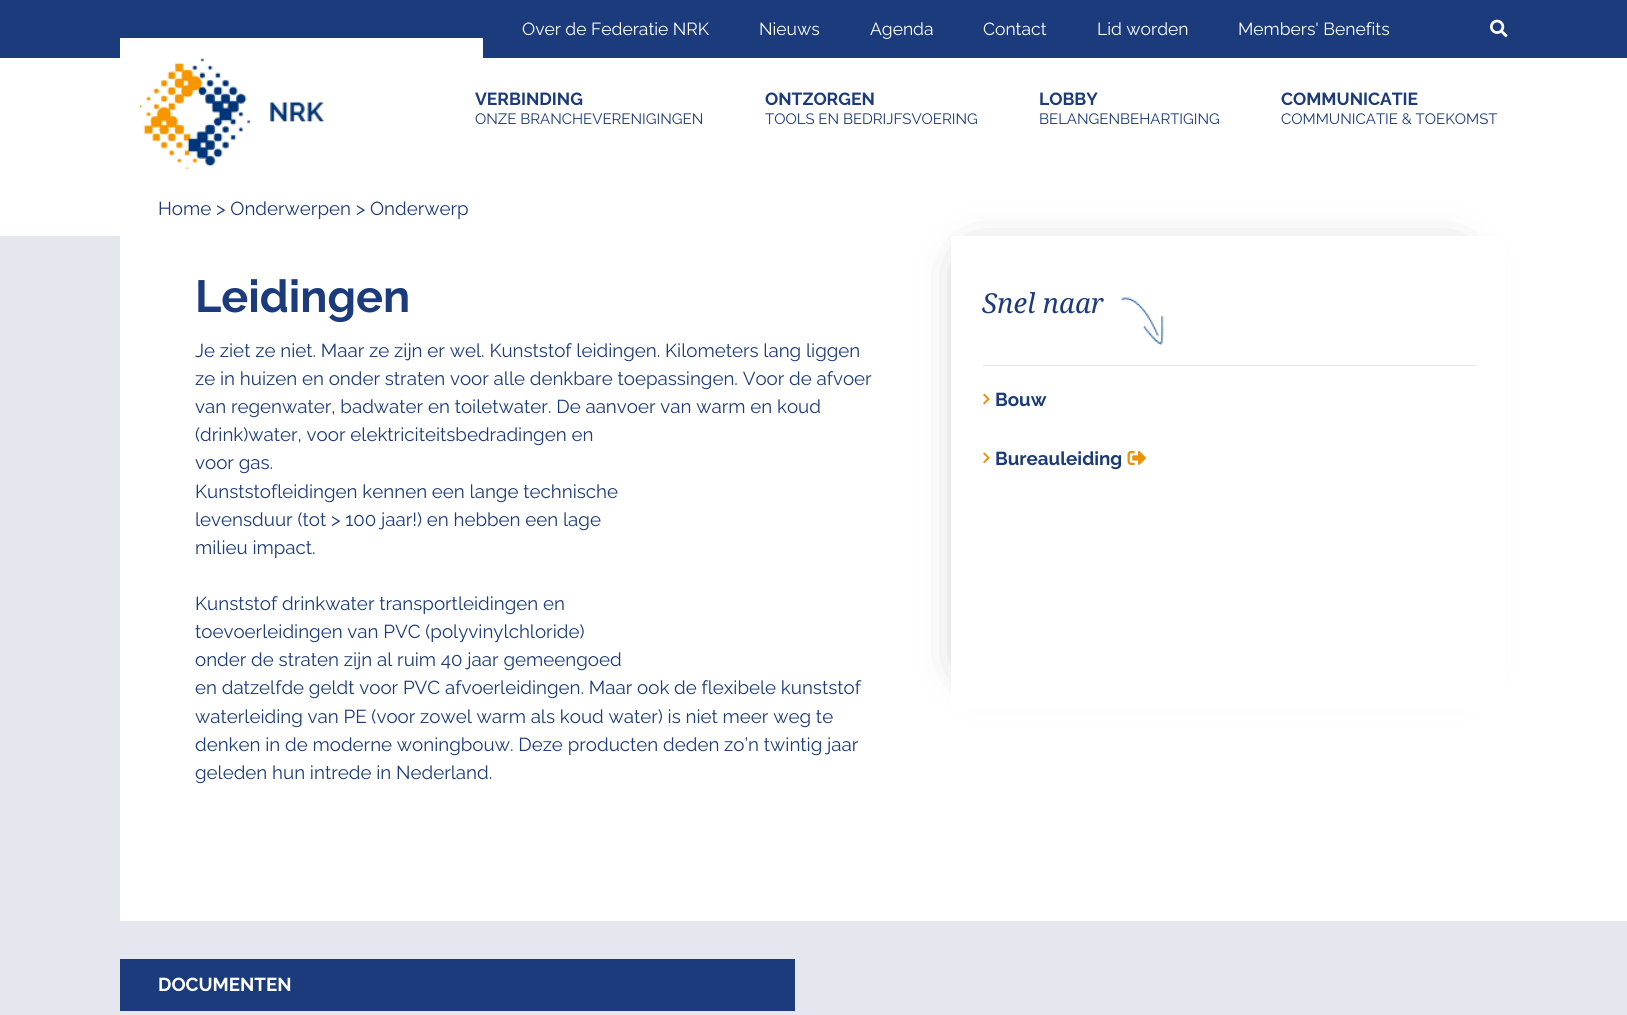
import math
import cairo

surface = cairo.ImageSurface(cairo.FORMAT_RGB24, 1627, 1015)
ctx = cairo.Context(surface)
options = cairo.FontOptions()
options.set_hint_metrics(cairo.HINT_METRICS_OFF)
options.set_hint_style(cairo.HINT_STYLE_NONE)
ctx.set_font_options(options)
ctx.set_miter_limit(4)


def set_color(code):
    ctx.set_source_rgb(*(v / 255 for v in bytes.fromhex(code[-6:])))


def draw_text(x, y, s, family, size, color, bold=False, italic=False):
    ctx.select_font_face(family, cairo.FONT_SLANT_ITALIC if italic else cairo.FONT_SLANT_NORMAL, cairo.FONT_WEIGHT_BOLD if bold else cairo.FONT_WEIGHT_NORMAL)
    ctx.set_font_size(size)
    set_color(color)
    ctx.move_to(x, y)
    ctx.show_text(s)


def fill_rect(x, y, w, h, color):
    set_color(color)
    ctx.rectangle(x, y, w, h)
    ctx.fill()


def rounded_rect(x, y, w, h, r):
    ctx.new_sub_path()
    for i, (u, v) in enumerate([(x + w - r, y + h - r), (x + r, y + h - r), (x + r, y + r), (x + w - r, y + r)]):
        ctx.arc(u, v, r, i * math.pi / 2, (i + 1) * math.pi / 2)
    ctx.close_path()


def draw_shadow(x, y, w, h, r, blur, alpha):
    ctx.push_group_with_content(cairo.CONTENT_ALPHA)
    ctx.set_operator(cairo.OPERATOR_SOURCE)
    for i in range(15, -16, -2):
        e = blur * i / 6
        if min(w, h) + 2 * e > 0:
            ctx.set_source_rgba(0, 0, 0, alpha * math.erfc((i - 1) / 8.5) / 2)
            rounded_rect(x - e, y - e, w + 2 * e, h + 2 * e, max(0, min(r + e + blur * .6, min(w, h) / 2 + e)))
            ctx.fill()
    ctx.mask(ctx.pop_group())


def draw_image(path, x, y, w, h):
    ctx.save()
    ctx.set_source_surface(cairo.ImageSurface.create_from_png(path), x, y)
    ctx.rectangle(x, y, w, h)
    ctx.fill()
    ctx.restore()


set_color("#ffffff")
ctx.paint()
fill_rect(0, 0, 1627, 58, "#1c3b7c")
draw_text(522, 35, "Over de Federatie NRK", "Raleway", 17.5, "#ffffff")
draw_text(759, 35, "Nieuws", "Raleway", 17.5, "#ffffff")
draw_text(870, 35, "Agenda", "Raleway", 17.5, "#ffffff")
draw_text(983, 35, "Contact", "Raleway", 17.5, "#ffffff")
draw_text(1097, 35, "Lid worden", "Raleway", 17.5, "#ffffff")
draw_text(1238, 35, "Members' Benefits", "Raleway", 17.5, "#ffffff")
draw_image("assets/img1.png", 1490, 19, 18, 19)
fill_rect(120, 38, 363, 20, "#ffffff")
draw_image("assets/img2.png", 140, 58, 184, 111)
draw_text(475, 105, "VERBINDING", "Raleway", 17.5, "#1c3b7c", bold=True)
draw_text(475, 124, "ONZE BRANCHEVERENIGINGEN", "Raleway", 15, "#1c3b7c")
draw_text(765, 105, "ONTZORGEN", "Raleway", 17.5, "#1c3b7c", bold=True)
draw_text(765, 124, "TOOLS EN BEDRIJFSVOERING", "Raleway", 15, "#1c3b7c")
draw_text(1039, 105, "LOBBY", "Raleway", 17.5, "#1c3b7c", bold=True)
draw_text(1039, 124, "BELANGENBEHARTIGING", "Raleway", 15, "#1c3b7c")
draw_text(1281, 105, "COMMUNICATIE", "Raleway", 17.5, "#1c3b7c", bold=True)
draw_text(1281, 124, "COMMUNICATIE & TOEKOMST", "Raleway", 15, "#1c3b7c")
fill_rect(0, 236, 120, 685, "#e4e7ee")
draw_text(158, 215, "Home > Onderwerpen > Onderwerp", "Raleway", 18.75, "#1c3b7c")
draw_text(195, 312, "Leidingen", "Raleway", 45, "#1c3b7c", bold=True)
draw_text(195, 357, "Je ziet ze niet. Maar ze zijn er wel. Kunststof leidingen. Kilometers lang liggen", "Raleway", 18.75, "#1c3b7c")
draw_text(195, 385, "ze in huizen en onder straten voor alle denkbare toepassingen. Voor de afvoer", "Raleway", 18.75, "#1c3b7c")
draw_text(195, 413, "van regenwater, badwater en toiletwater. De aanvoer van warm en koud", "Raleway", 18.75, "#1c3b7c")
draw_text(195, 441, "(drink)water, voor elektriciteitsbedradingen en", "Raleway", 18.75, "#1c3b7c")
draw_text(195, 469, "voor gas.", "Raleway", 18.75, "#1c3b7c")
draw_text(195, 498, "Kunststofleidingen kennen een lange technische", "Raleway", 18.75, "#1c3b7c")
draw_text(195, 526, "levensduur (tot > 100 jaar!) en hebben een lage", "Raleway", 18.75, "#1c3b7c")
draw_text(195, 554, "milieu impact.", "Raleway", 18.75, "#1c3b7c")
draw_text(195, 610, "Kunststof drinkwater transportleidingen en", "Raleway", 18.75, "#1c3b7c")
draw_text(195, 638, "toevoerleidingen van PVC (polyvinylchloride)", "Raleway", 18.75, "#1c3b7c")
draw_text(195, 666, "onder de straten zijn al ruim 40 jaar gemeengoed", "Raleway", 18.75, "#1c3b7c")
draw_text(195, 694, "en datzelfde geldt voor PVC afvoerleidingen. Maar ook de flexibele kunststof", "Raleway", 18.75, "#1c3b7c")
draw_text(195, 723, "waterleiding van PE (voor zowel warm als koud water) is niet meer weg te", "Raleway", 18.75, "#1c3b7c")
draw_text(195, 751, "denken in de moderne woningbouw. Deze producten deden zo’n twintig jaar", "Raleway", 18.75, "#1c3b7c")
draw_text(195, 779, "geleden hun intrede in Nederland.", "Raleway", 18.75, "#1c3b7c")
set_color("#000000")
draw_shadow(975, 264, 481, 400, 0, 24, 0.5)
fill_rect(951, 236, 554, 475, "#ffffff")
draw_text(982, 313, "Snel naar", "Noto Serif", 27.5, "#1c3b7c", italic=True)
draw_image("assets/img3.png", 1121, 297, 43, 49)
fill_rect(983, 365, 493, 1, "#e6e6e6")
draw_image("assets/img4.png", 983, 393, 7, 12)
draw_text(995, 406, "Bouw", "Raleway", 18.75, "#1c3b7c", bold=True)
draw_image("assets/img5.png", 983, 452, 7, 12)
draw_text(995, 465, "Bureauleiding", "Raleway", 18.75, "#1c3b7c", bold=True)
draw_image("assets/img6.png", 1127, 450, 19, 15)
fill_rect(0, 921, 1627, 94, "#e4e7ee")
fill_rect(120, 959, 675, 52, "#1c3b7c")
draw_text(158, 991, "DOCUMENTEN", "Raleway", 18.75, "#ffffff", bold=True)
surface.write_to_png("output.png")
